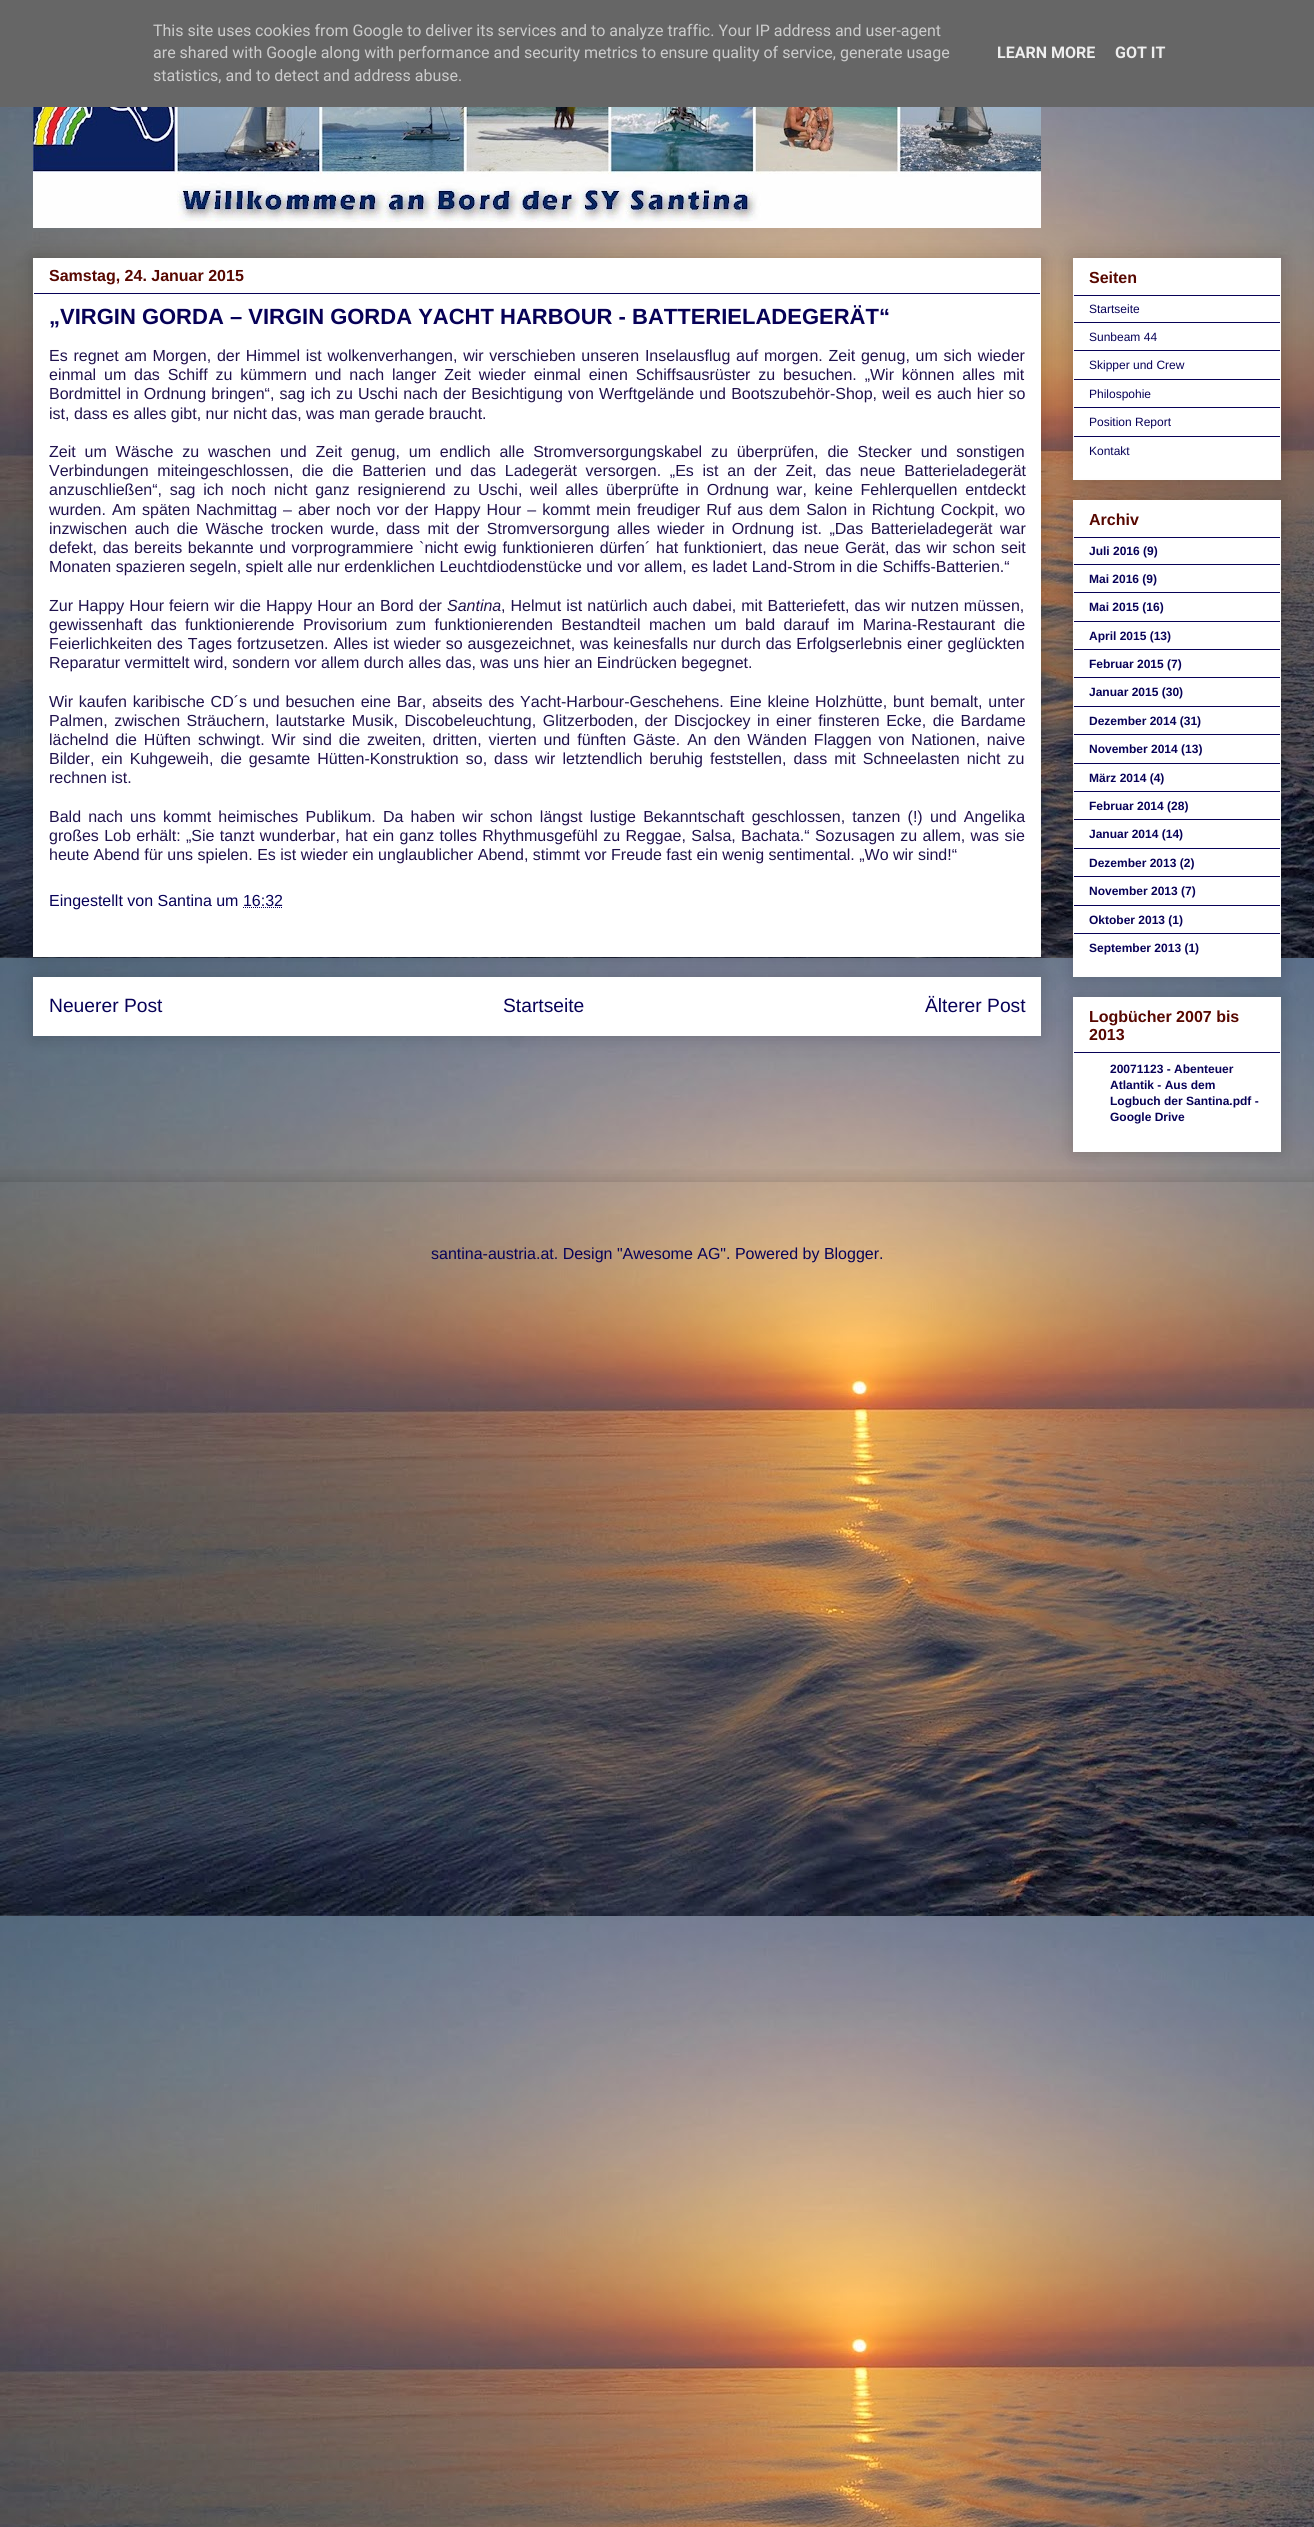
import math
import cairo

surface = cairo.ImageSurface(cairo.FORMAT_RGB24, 1314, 2527)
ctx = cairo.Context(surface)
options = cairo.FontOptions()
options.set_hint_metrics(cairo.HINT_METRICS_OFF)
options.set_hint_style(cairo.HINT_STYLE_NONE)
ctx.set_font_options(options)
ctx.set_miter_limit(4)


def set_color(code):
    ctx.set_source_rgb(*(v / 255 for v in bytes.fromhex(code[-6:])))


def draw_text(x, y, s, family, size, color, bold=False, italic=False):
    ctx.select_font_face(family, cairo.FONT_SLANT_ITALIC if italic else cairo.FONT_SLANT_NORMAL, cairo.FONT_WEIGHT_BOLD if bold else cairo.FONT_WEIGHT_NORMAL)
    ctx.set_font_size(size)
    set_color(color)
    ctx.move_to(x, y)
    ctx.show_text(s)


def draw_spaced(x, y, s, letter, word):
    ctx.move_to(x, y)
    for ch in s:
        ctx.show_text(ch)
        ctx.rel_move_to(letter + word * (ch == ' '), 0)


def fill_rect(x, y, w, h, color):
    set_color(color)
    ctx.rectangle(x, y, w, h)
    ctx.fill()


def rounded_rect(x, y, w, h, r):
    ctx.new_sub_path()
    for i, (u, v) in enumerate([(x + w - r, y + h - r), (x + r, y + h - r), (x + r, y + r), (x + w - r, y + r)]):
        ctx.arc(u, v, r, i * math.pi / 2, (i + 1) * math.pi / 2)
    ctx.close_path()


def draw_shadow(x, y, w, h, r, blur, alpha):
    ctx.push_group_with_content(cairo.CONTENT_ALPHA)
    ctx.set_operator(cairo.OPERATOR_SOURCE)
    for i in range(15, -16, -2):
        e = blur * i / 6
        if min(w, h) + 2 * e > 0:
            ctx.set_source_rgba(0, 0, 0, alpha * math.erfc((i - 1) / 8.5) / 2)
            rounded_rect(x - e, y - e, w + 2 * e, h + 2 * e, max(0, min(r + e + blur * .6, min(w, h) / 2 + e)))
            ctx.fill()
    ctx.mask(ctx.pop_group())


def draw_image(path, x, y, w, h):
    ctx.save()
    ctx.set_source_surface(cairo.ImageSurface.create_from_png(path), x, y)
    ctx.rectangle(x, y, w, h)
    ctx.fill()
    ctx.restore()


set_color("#ffffff")
ctx.paint()
draw_image("assets/img1.png", 0, 107, 1314, 2420)
fill_rect(0, 0, 1314, 107, "#666666")
draw_text(153, 36, "This site uses cookies from Google to deliver its services and to analyze traffic. Your IP address and user-agent", "Roboto", 16, "#cccccc")
draw_text(153, 58, "are shared with Google along with performance and security metrics to ensure quality of service, generate usage", "Roboto", 16, "#cccccc")
draw_text(153, 81, "statistics, and to detect and address abuse.", "Roboto", 16, "#cccccc")
draw_text(997, 58, "LEARN MORE", "Roboto", 16, "#eeeeee", bold=True)
draw_text(1115, 58, "GOT IT", "Roboto", 16, "#eeeeee", bold=True)
draw_image("assets/img2.png", 33, 107, 1008, 121)
set_color("#000000")
draw_shadow(33, 977, 1008, 59, 0, 10, 0.2)
fill_rect(33, 977, 1008, 59, "#ffffff")
set_color("#000000")
draw_shadow(33, 258, 1008, 699, 0, 10, 0.2)
fill_rect(33, 258, 1008, 699, "#ffffff")
fill_rect(34, 293, 1006, 1, "#070157")
draw_text(49, 281, "Samstag, 24. Januar 2015", "Liberation Sans", 16, "#570700", bold=True)
draw_text(49, 324, "„VIRGIN GORDA – VIRGIN GORDA YACHT HARBOUR - BATTERIELADEGERÄT“", "Liberation Sans", 22, "#070157", bold=True)
ctx.select_font_face("Liberation Sans")
ctx.set_font_size(16)
set_color("#20124d")
draw_spaced(49, 361, "Es regnet am Morgen, der Himmel ist wolkenverhangen, wir verschieben unseren Inselausflug auf morgen. Zeit genug, um sich wieder", 0, 1.3)
draw_spaced(49, 380, "einmal um das Schiff zu kümmern und nach langer Zeit wieder einmal einen Schiffsausrüster zu besuchen. „Wir können alles mit", 0, 3.4)
draw_spaced(49, 399, "Bordmittel in Ordnung bringen“, sag ich zu Uschi nach der Besichtigung von Werftgelände und Bootszubehör-Shop, weil es auch hier so", 0, 0.7)
draw_text(49, 419, "ist, dass es alles gibt, nur nicht das, was man gerade braucht.", "Liberation Sans", 16, "#20124d")
draw_spaced(49, 457, "Zeit um Wäsche zu waschen und Zeit genug, um endlich alle Stromversorgungskabel zu überprüfen, die Stecker und sonstigen", 0, 4.4)
draw_spaced(49, 476, "Verbindungen miteingeschlossen, die die Batterien und das Ladegerät versorgen. „Es ist an der Zeit, das neue Batterieladegerät", 0, 4.25)
draw_spaced(49, 495, "anzuschließen“, sag ich noch nicht ganz resignierend zu Uschi, weil alles überprüfte in Ordnung war, keine Fehlerquellen entdeckt", 0, 3.25)
draw_spaced(49, 515, "wurden. Am späten Nachmittag – aber noch vor der Happy Hour – kommt mein freudiger Ruf aus dem Salon in Richtung Cockpit, wo", 0, 1.6)
draw_spaced(49, 534, "inzwischen auch die Wäsche trocken wurde, dass mit der Stromversorgung alles wieder in Ordnung ist. „Das Batterieladegerät war", 0, 3)
draw_spaced(49, 553, "defekt, das bereits bekannte und vorprogrammiere `nicht ewig funktionieren dürfen´ hat funktioniert, das neue Gerät, das wir schon seit", 0, 1.2)
draw_text(49, 572, "Monaten spazieren segeln, spielt alle nur erdenklichen Leuchtdiodenstücke und vor allem, es ladet Land-Strom in die Schiffs-Batterien.“", "Liberation Sans", 16, "#20124d")
draw_spaced(49, 611, "Zur Happy Hour feiern wir die Happy Hour an Bord der", 0, 0.6)
draw_text(447, 611, "Santina", "Liberation Sans", 16, "#20124d", italic=True)
ctx.select_font_face("Liberation Sans")
draw_spaced(501, 611, ", Helmut ist natürlich auch dabei, mit Batteriefett, das wir nutzen müssen,", 0, 0.6)
draw_spaced(49, 630, "gewissenhaft das funktionierende Provisorium zum funktionierenden Bestandteil machen um bald darauf im Marina-Restaurant die", 0, 4)
draw_spaced(49, 649, "Feierlichkeiten des Tages fortzusetzen. Alles ist wieder so ausgezeichnet, was keinesfalls nur durch das Erfolgserlebnis einer geglückten", 0, 0.4)
draw_text(49, 668, "Reparatur vermittelt wird, sondern vor allem durch alles das, was uns hier an Eindrücken begegnet.", "Liberation Sans", 16, "#20124d")
draw_spaced(49, 707, "Wir kaufen karibische CD´s und besuchen eine Bar, abseits des Yacht-Harbour-Geschehens. Eine kleine Holzhütte, bunt bemalt, unter", 0, 1.4)
draw_spaced(49, 726, "Palmen, zwischen Sträuchern, lautstarke Musik, Discobeleuchtung, Glitzerboden, der Discjockey in einer finsteren Ecke, die Bardame", 0, 2.1)
draw_spaced(49, 745, "lächelnd die Hüften schwingt. Wir sind die zweiten, dritten, vierten und fünften Gäste. An den Wänden Flaggen von Nationen, naive", 0, 2.5)
draw_spaced(49, 764, "Bilder, ein Kuhgeweih, die gesamte Hütten-Konstruktion so, dass wir letztendlich beruhig feststellen, dass mit Schneelasten nicht zu", 0, 2.6)
draw_text(49, 783, "rechnen ist.", "Liberation Sans", 16, "#20124d")
draw_spaced(49, 822, "Bald nach uns kommt heimisches Publikum. Da haben wir schon längst lustige Bekanntschaft geschlossen, tanzen (!) und Angelika", 0, 2.75)
draw_spaced(49, 841, "großes Lob erhält: „Sie tanzt wunderbar, hat ein ganz tolles Rhythmusgefühl zu Reggae, Salsa, Bachata.“ Sozusagen zu allem, was sie", 0, 0.9)
draw_text(49, 860, "heute Abend für uns spielen. Es ist wieder ein unglaublicher Abend, stimmt vor Freude fast ein wenig sentimental. „Wo wir sind!“", "Liberation Sans", 16, "#20124d")
draw_text(49, 906, "Eingestellt von Santina um 16:32", "Liberation Sans", 16, "#070157")
ctx.new_path()
ctx.move_to(243, 907.5)
ctx.line_to(283, 907.5)
ctx.set_line_width(1)
ctx.set_dash([1, 1])
ctx.stroke()
draw_text(49, 1012, "Neuerer Post", "Liberation Sans", 19.25, "#070157")
draw_text(503, 1012, "Startseite", "Liberation Sans", 19.25, "#070157")
draw_text(925, 1012, "Älterer Post", "Liberation Sans", 19.25, "#070157")
set_color("#000000")
draw_shadow(1073, 258, 208, 222, 0, 10, 0.2)
fill_rect(1073, 258, 208, 222, "#ffffff")
fill_rect(1074, 295, 206, 1, "#070157")
draw_text(1089, 283, "Seiten", "Liberation Sans", 16, "#570700", bold=True)
fill_rect(1074, 322, 206, 1, "#070157")
draw_text(1089, 313, "Startseite", "Liberation Sans", 12, "#070157")
fill_rect(1074, 350, 206, 1, "#070157")
draw_text(1089, 341, "Sunbeam 44", "Liberation Sans", 12, "#070157")
fill_rect(1074, 379, 206, 1, "#070157")
draw_text(1089, 369, "Skipper und Crew", "Liberation Sans", 12, "#070157")
fill_rect(1074, 407, 206, 1, "#070157")
draw_text(1089, 398, "Philospohie", "Liberation Sans", 12, "#070157")
fill_rect(1074, 436, 206, 1, "#070157")
draw_text(1089, 426, "Position Report", "Liberation Sans", 12, "#070157")
draw_text(1089, 455, "Kontakt", "Liberation Sans", 12, "#070157")
set_color("#000000")
draw_shadow(1073, 500, 208, 477, 0, 10, 0.2)
fill_rect(1073, 500, 208, 477, "#ffffff")
fill_rect(1074, 537, 206, 1, "#070157")
draw_text(1089, 525, "Archiv", "Liberation Sans", 16, "#570700", bold=True)
fill_rect(1074, 564, 206, 1, "#070157")
draw_text(1089, 555, "Juli 2016 (9)", "Liberation Sans", 12, "#070157", bold=True)
fill_rect(1074, 592, 206, 1, "#070157")
draw_text(1089, 583, "Mai 2016 (9)", "Liberation Sans", 12, "#070157", bold=True)
fill_rect(1074, 621, 206, 1, "#070157")
draw_text(1089, 611, "Mai 2015 (16)", "Liberation Sans", 12, "#070157", bold=True)
fill_rect(1074, 649, 206, 1, "#070157")
draw_text(1089, 640, "April 2015 (13)", "Liberation Sans", 12, "#070157", bold=True)
fill_rect(1074, 677, 206, 1, "#070157")
draw_text(1089, 668, "Februar 2015 (7)", "Liberation Sans", 12, "#070157", bold=True)
fill_rect(1074, 706, 206, 1, "#070157")
draw_text(1089, 696, "Januar 2015 (30)", "Liberation Sans", 12, "#070157", bold=True)
fill_rect(1074, 734, 206, 1, "#070157")
draw_text(1089, 725, "Dezember 2014 (31)", "Liberation Sans", 12, "#070157", bold=True)
fill_rect(1074, 763, 206, 1, "#070157")
draw_text(1089, 753, "November 2014 (13)", "Liberation Sans", 12, "#070157", bold=True)
fill_rect(1074, 791, 206, 1, "#070157")
draw_text(1089, 782, "März 2014 (4)", "Liberation Sans", 12, "#070157", bold=True)
fill_rect(1074, 819, 206, 1, "#070157")
draw_text(1089, 810, "Februar 2014 (28)", "Liberation Sans", 12, "#070157", bold=True)
fill_rect(1074, 848, 206, 1, "#070157")
draw_text(1089, 838, "Januar 2014 (14)", "Liberation Sans", 12, "#070157", bold=True)
fill_rect(1074, 876, 206, 1, "#070157")
draw_text(1089, 867, "Dezember 2013 (2)", "Liberation Sans", 12, "#070157", bold=True)
fill_rect(1074, 905, 206, 1, "#070157")
draw_text(1089, 895, "November 2013 (7)", "Liberation Sans", 12, "#070157", bold=True)
fill_rect(1074, 933, 206, 1, "#070157")
draw_text(1089, 924, "Oktober 2013 (1)", "Liberation Sans", 12, "#070157", bold=True)
draw_text(1089, 952, "September 2013 (1)", "Liberation Sans", 12, "#070157", bold=True)
set_color("#000000")
draw_shadow(1073, 997, 208, 155, 0, 10, 0.2)
fill_rect(1073, 997, 208, 155, "#ffffff")
fill_rect(1074, 1052, 206, 1, "#070157")
draw_text(1089, 1022, "Logbücher 2007 bis", "Liberation Sans", 16, "#570700", bold=True)
draw_text(1089, 1040, "2013", "Liberation Sans", 16, "#570700", bold=True)
draw_text(1110, 1073, "20071123 - Abenteuer", "Liberation Sans", 12, "#070157", bold=True)
draw_text(1110, 1089, "Atlantik - Aus dem", "Liberation Sans", 12, "#070157", bold=True)
draw_text(1110, 1105, "Logbuch der Santina.pdf -", "Liberation Sans", 12, "#070157", bold=True)
draw_text(1110, 1121, "Google Drive", "Liberation Sans", 12, "#070157", bold=True)
ctx.save()
ctx.rectangle(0, 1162, 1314, 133)
ctx.clip()
ctx.rectangle(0, 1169, 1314, 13)
ctx.clip()
set_color("#000000")
draw_shadow(-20, 1182, 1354, 113, 0, 10, 0.2)
ctx.restore()
draw_text(431, 1259, "santina-austria.at. Design \"Awesome AG\". Powered by Blogger.", "Liberation Sans", 16, "#070157")
surface.write_to_png("output.png")
